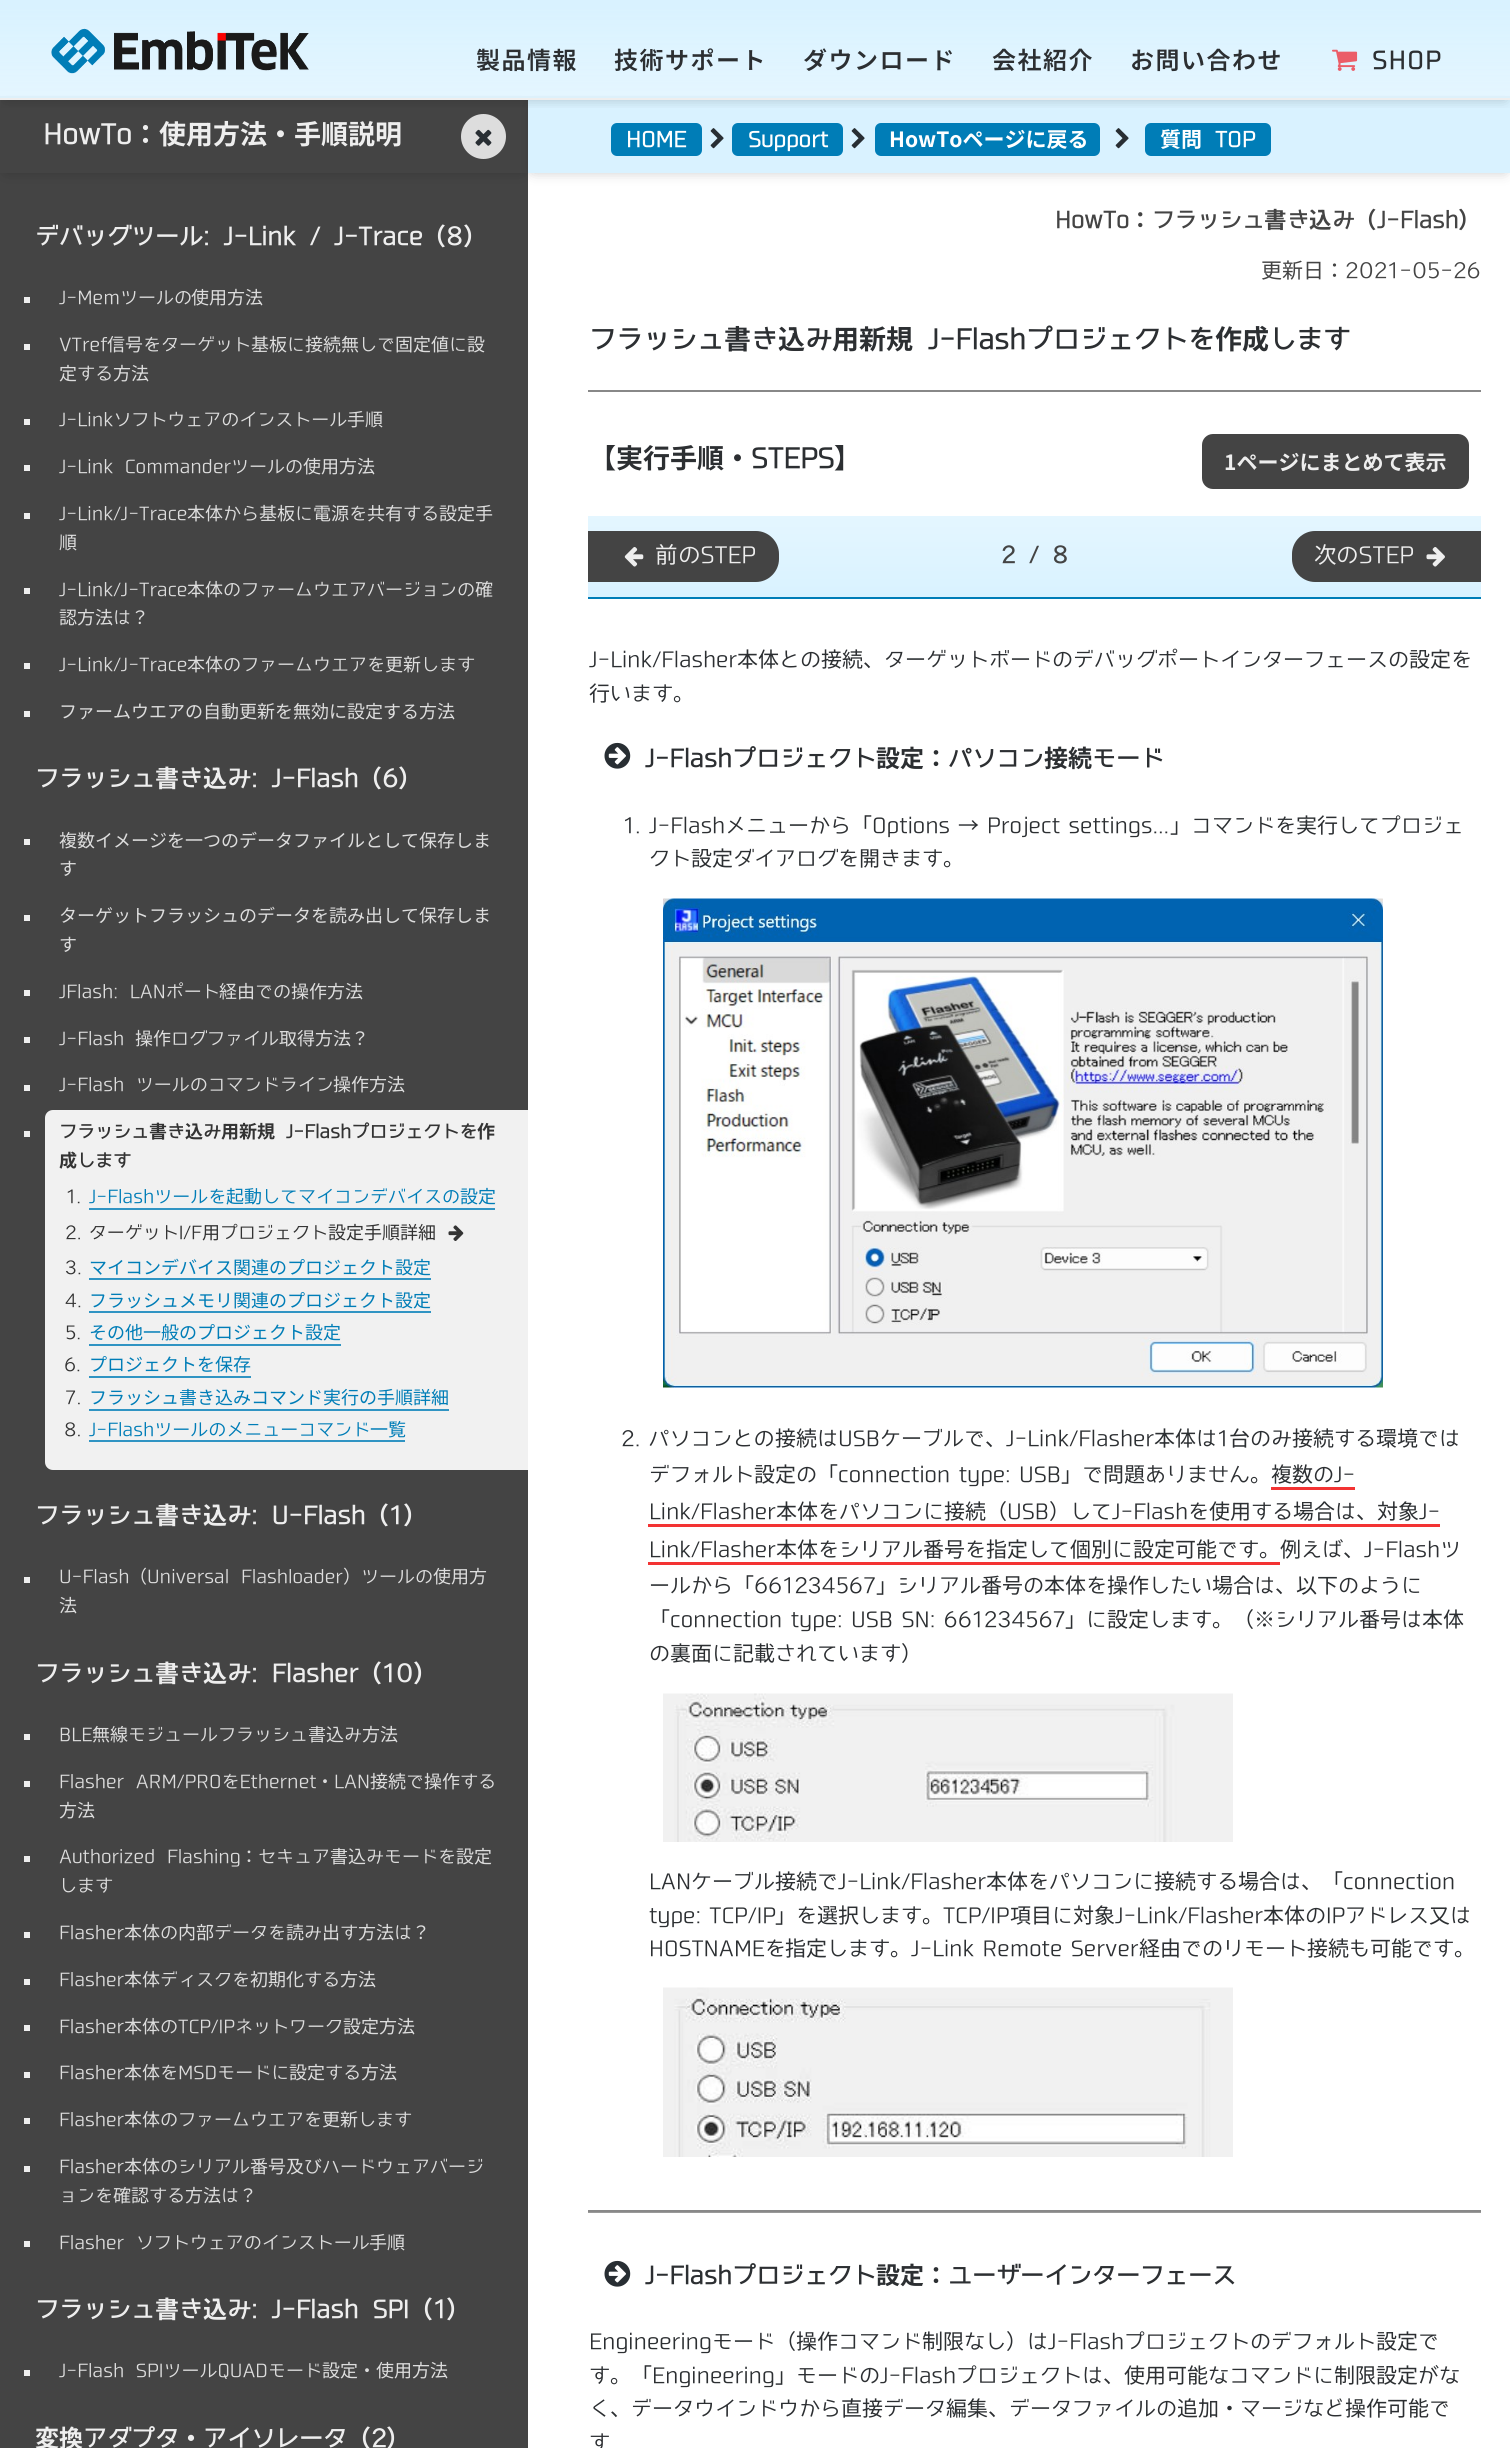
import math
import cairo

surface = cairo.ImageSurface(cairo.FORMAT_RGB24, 1510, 2448)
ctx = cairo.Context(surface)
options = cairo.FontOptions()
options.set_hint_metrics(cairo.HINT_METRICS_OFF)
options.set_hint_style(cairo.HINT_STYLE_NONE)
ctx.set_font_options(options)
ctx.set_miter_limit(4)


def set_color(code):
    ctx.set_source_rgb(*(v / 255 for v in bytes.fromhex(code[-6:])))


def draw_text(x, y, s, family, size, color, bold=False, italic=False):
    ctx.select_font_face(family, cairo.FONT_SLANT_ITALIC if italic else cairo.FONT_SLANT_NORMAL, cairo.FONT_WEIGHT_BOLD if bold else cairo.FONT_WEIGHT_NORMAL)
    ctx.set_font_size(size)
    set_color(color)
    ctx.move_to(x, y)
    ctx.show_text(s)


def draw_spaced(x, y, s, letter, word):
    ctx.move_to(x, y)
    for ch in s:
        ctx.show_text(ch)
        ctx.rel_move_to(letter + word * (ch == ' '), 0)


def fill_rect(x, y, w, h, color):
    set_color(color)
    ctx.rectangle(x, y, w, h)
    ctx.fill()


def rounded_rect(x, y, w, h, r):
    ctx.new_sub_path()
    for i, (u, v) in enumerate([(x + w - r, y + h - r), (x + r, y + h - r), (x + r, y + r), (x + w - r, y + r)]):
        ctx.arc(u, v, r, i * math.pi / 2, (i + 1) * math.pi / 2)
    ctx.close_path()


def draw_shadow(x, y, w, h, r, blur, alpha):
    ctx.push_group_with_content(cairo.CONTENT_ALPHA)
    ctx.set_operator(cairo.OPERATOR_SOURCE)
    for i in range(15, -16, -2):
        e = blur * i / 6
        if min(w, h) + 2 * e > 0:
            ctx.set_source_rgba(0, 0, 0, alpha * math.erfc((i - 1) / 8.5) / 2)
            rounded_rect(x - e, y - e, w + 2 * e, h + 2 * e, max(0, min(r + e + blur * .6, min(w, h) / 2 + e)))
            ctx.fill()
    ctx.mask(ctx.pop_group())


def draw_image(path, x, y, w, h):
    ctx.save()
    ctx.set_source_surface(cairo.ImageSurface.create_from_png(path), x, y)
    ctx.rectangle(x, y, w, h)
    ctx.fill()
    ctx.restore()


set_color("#ffffff")
ctx.paint()
fill_rect(0, 173, 528, 2275, "#444444")
set_color("#000000")
draw_shadow(6, 108, 516, 63, 0, 7, 0.25)
fill_rect(0, 100, 528, 73, "#444444")
set_color("#000000")
draw_shadow(534, 108, 971, 63, 0, 7, 0.25)
fill_rect(0, 96, 1510, 2, "#e6eff3")
set_color("#dddddd")
ctx.arc(483.5, 136.5, 22.5, 0, 2 * math.pi)
ctx.fill()
fill_rect(528, 100, 982, 73, "#d9f2ff")
ctx.save()
ctx.rectangle(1, 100, 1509, 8)
ctx.clip()
set_color("#000000")
draw_shadow(6, 11, 1499, 87, 0, 7, 0.25)
ctx.restore()
gradient = cairo.LinearGradient(755, 7.5, 755, 98)
gradient.add_color_stop_rgba(0, 0.851, 0.949, 1, 1)
gradient.add_color_stop_rgba(1, 0.851, 0.949, 1, 0.7)
ctx.set_source(gradient)
ctx.rectangle(0, 8, 1510, 90)
ctx.fill()
fill_rect(0, 0, 1510, 8, "#d9f2ff")
fill_rect(0, 98, 1510, 2, "#eeeeee")
draw_image("assets/img1.png", 51, 28, 258, 46)
ctx.select_font_face("Noto Sans JP SemiBold")
ctx.set_font_size(24)
set_color("#2c2f32")
draw_spaced(476, 69, "製品情報", 1.5, 0)
draw_spaced(614, 69, "技術サポート", 1.5, 0)
draw_spaced(803, 69, "ダウンロード", 1.5, 0)
draw_spaced(992, 69, "会社紹介", 1.5, 0)
draw_spaced(1130, 69, "お問い合わせ", 1.5, 0)
draw_image("assets/img2.png", 1332, 49, 26, 22)
ctx.select_font_face("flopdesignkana", cairo.FONT_SLANT_NORMAL, cairo.FONT_WEIGHT_BOLD)
draw_spaced(1372, 69, "SHOP", 1.5, 0)
draw_text(43, 144, "HowTo", "flopdesignkana", 27, "#eeeeee", bold=True)
draw_text(132, 144, "：使用方法・手順説明", "Noto Sans JP", 27, "#eeeeee", bold=True)
draw_image("assets/img3.png", 475, 129, 17, 17)
set_color("#007db7")
rounded_rect(611, 123, 91, 33, 6)
ctx.fill()
draw_text(626, 147, "HOME", "flopdesignkana", 21, "#ffffff", bold=True)
draw_image("assets/img4.png", 710, 128, 14, 21)
set_color("#007db7")
rounded_rect(732, 123, 111, 33, 6)
ctx.fill()
draw_text(748, 147, "Support", "flopdesignkana", 21, "#ffffff", bold=True)
draw_image("assets/img4.png", 851, 128, 14, 21)
set_color("#007db7")
rounded_rect(875, 123, 225, 33, 6)
ctx.fill()
draw_text(889, 147, "HowToページに戻る", "Noto Sans JP", 21, "#ffffff", bold=True)
draw_image("assets/img4.png", 1115, 128, 14, 21)
set_color("#007db7")
rounded_rect(1145, 123, 126, 33, 6)
ctx.fill()
draw_text(1160, 147, "質問", "Noto Sans JP", 21, "#ffffff", bold=True)
draw_text(1215, 147, "TOP", "flopdesignkana", 21, "#ffffff", bold=True)
ctx.set_font_size(24)
set_color("#eeeeee")
draw_spaced(35, 245, "デバッグツール: J-Link / J-Trace", 0, 4.5)
draw_text(422, 245, "（", "Noto Sans JP", 24, "#eeeeee", bold=True)
draw_text(446, 245, "8", "flopdesignkana", 24, "#eeeeee", bold=True)
draw_text(463, 245, "）", "Noto Sans JP", 24, "#eeeeee", bold=True)
fill_rect(24, 297, 6, 6, "#eeeeee")
draw_text(59, 304, "J-Memツールの", "flopdesignkana", 18, "#dddddd")
draw_text(191, 304, "使用方法", "Noto Sans JP", 18, "#dddddd")
fill_rect(24, 344, 6, 6, "#eeeeee")
draw_text(59, 351, "VTref", "flopdesignkana", 18, "#dddddd")
draw_text(107, 351, "信号", "Noto Sans JP", 18, "#dddddd")
draw_text(143, 351, "をターゲット", "flopdesignkana", 18, "#dddddd")
draw_text(251, 351, "基板", "Noto Sans JP", 18, "#dddddd")
draw_text(287, 351, "に", "flopdesignkana", 18, "#dddddd")
draw_text(305, 351, "接続無", "Noto Sans JP", 18, "#dddddd")
draw_text(359, 351, "しで", "flopdesignkana", 18, "#dddddd")
draw_text(395, 351, "固定値", "Noto Sans JP", 18, "#dddddd")
draw_text(449, 351, "に", "flopdesignkana", 18, "#dddddd")
draw_text(467, 351, "設", "Noto Sans JP", 18, "#dddddd")
draw_text(59, 380, "定", "Noto Sans JP", 18, "#dddddd")
draw_text(77, 380, "する", "flopdesignkana", 18, "#dddddd")
draw_text(113, 380, "方法", "Noto Sans JP", 18, "#dddddd")
fill_rect(24, 419, 6, 6, "#eeeeee")
draw_text(59, 426, "J-Linkソフトウェアのインストール", "flopdesignkana", 18, "#dddddd")
draw_text(347, 426, "手順", "Noto Sans JP", 18, "#dddddd")
fill_rect(24, 465, 6, 6, "#eeeeee")
ctx.select_font_face("flopdesignkana")
set_color("#dddddd")
draw_spaced(59, 473, "J-Link Commanderツールの", 0, 4.5)
draw_text(303, 473, "使用方法", "Noto Sans JP", 18, "#dddddd")
fill_rect(24, 513, 6, 6, "#eeeeee")
draw_text(59, 520, "J-Link/J-Trace", "flopdesignkana", 18, "#dddddd")
draw_text(187, 520, "本体", "Noto Sans JP", 18, "#dddddd")
draw_text(223, 520, "から", "flopdesignkana", 18, "#dddddd")
draw_text(259, 520, "基板", "Noto Sans JP", 18, "#dddddd")
draw_text(295, 520, "に", "flopdesignkana", 18, "#dddddd")
draw_text(313, 520, "電源", "Noto Sans JP", 18, "#dddddd")
draw_text(349, 520, "を", "flopdesignkana", 18, "#dddddd")
draw_text(367, 520, "共有", "Noto Sans JP", 18, "#dddddd")
draw_text(403, 520, "する", "flopdesignkana", 18, "#dddddd")
draw_text(439, 520, "設定手", "Noto Sans JP", 18, "#dddddd")
draw_text(59, 549, "順", "Noto Sans JP", 18, "#dddddd")
fill_rect(24, 588, 6, 6, "#eeeeee")
draw_text(59, 596, "J-Link/J-Trace", "flopdesignkana", 18, "#dddddd")
draw_text(187, 596, "本体", "Noto Sans JP", 18, "#dddddd")
draw_text(223, 596, "のファームウエアバージョンの", "flopdesignkana", 18, "#dddddd")
draw_text(475, 596, "確", "Noto Sans JP", 18, "#dddddd")
draw_text(59, 624, "認方法", "Noto Sans JP", 18, "#dddddd")
draw_text(113, 624, "は", "flopdesignkana", 18, "#dddddd")
draw_text(131, 624, "？", "Noto Sans JP", 18, "#dddddd")
fill_rect(24, 663, 6, 6, "#eeeeee")
draw_text(59, 671, "J-Link/J-Trace", "flopdesignkana", 18, "#dddddd")
draw_text(187, 671, "本体", "Noto Sans JP", 18, "#dddddd")
draw_text(223, 671, "のファームウエアを", "flopdesignkana", 18, "#dddddd")
draw_text(385, 671, "更新", "Noto Sans JP", 18, "#dddddd")
draw_text(421, 671, "します", "flopdesignkana", 18, "#dddddd")
fill_rect(24, 711, 6, 6, "#eeeeee")
draw_text(59, 718, "ファームウエアの自動更新を無効に設定する方法", "Noto Sans JP", 18, "#dddddd")
draw_text(35, 787, "フラッシュ", "flopdesignkana", 24, "#eeeeee", bold=True)
draw_text(155, 787, "書", "Noto Sans JP", 24, "#eeeeee", bold=True)
draw_text(179, 787, "き", "flopdesignkana", 24, "#eeeeee", bold=True)
draw_text(203, 787, "込", "Noto Sans JP", 24, "#eeeeee", bold=True)
ctx.select_font_face("flopdesignkana", cairo.FONT_SLANT_NORMAL, cairo.FONT_WEIGHT_BOLD)
draw_spaced(227, 787, "み: J-Flash", 0, 4.5)
draw_text(358, 787, "（", "Noto Sans JP", 24, "#eeeeee", bold=True)
draw_text(382, 787, "6", "flopdesignkana", 24, "#eeeeee", bold=True)
draw_text(398, 787, "）", "Noto Sans JP", 24, "#eeeeee", bold=True)
fill_rect(24, 839, 6, 6, "#eeeeee")
draw_text(59, 847, "複数イメージを一つのデータファイルとして保存しま", "Noto Sans JP", 18, "#dddddd")
draw_text(59, 875, "す", "Noto Sans JP", 18, "#dddddd")
fill_rect(24, 915, 6, 6, "#eeeeee")
draw_text(59, 922, "ターゲットフラッシュのデータを読み出して保存しま", "Noto Sans JP", 18, "#dddddd")
draw_text(59, 951, "す", "Noto Sans JP", 18, "#dddddd")
fill_rect(24, 990, 6, 6, "#eeeeee")
ctx.select_font_face("flopdesignkana")
set_color("#dddddd")
draw_spaced(59, 998, "JFlash: LANポート", 0, 4.5)
draw_text(219, 998, "経由", "Noto Sans JP", 18, "#dddddd")
draw_text(255, 998, "での", "flopdesignkana", 18, "#dddddd")
draw_text(291, 998, "操作方法", "Noto Sans JP", 18, "#dddddd")
fill_rect(24, 1037, 6, 6, "#eeeeee")
draw_text(59, 1045, "J-Flash", "flopdesignkana", 18, "#dddddd")
draw_text(135, 1045, "操作", "Noto Sans JP", 18, "#dddddd")
draw_text(171, 1045, "ログファイル", "flopdesignkana", 18, "#dddddd")
draw_text(279, 1045, "取得方法？", "Noto Sans JP", 18, "#dddddd")
fill_rect(24, 1085, 6, 6, "#eeeeee")
ctx.select_font_face("flopdesignkana")
set_color("#dddddd")
draw_spaced(59, 1091, "J-Flash ツールのコマンドライン", 0, 4.5)
draw_text(333, 1091, "操作方法", "Noto Sans JP", 18, "#dddddd")
set_color("#f1f1f1")
ctx.new_path()
ctx.move_to(53, 1110)
ctx.line_to(528, 1110)
ctx.line_to(528, 1470)
ctx.line_to(53, 1470)
ctx.curve_to(48.5, 1470, 45, 1466.5, 45, 1462)
ctx.line_to(45, 1118)
ctx.curve_to(45, 1113.5, 48.5, 1110, 53, 1110)
ctx.close_path()
ctx.fill()
fill_rect(24, 1131, 6, 6, "#eeeeee")
draw_text(59, 1138, "フラッシュ", "flopdesignkana", 18, "#333333", bold=True)
draw_text(149, 1138, "書", "Noto Sans JP", 18, "#333333", bold=True)
draw_text(167, 1138, "き", "flopdesignkana", 18, "#333333", bold=True)
draw_text(185, 1138, "込", "Noto Sans JP", 18, "#333333", bold=True)
draw_text(203, 1138, "み", "flopdesignkana", 18, "#333333", bold=True)
draw_text(221, 1138, "用新規", "Noto Sans JP", 18, "#333333", bold=True)
draw_text(286, 1138, "J-Flashプロジェクトを", "flopdesignkana", 18, "#333333", bold=True)
draw_text(477, 1138, "作", "Noto Sans JP", 18, "#333333", bold=True)
draw_text(59, 1167, "成", "Noto Sans JP", 18, "#333333", bold=True)
draw_text(77, 1167, "します", "flopdesignkana", 18, "#333333", bold=True)
draw_text(66, 1203, "1.", "flopdesignkana", 18, "#333333")
draw_text(89, 1203, "J-Flashツールを", "flopdesignkana", 18, "#007db7")
fill_rect(89, 1208, 406, 2, "#3094c3")
draw_text(226, 1203, "起動", "Noto Sans JP", 18, "#007db7")
draw_text(262, 1203, "してマイコンデバイスの", "flopdesignkana", 18, "#007db7")
draw_text(460, 1203, "設定", "Noto Sans JP", 18, "#007db7")
draw_text(65, 1239, "2. ターゲットI/F", "flopdesignkana", 18, "#333333")
draw_text(202, 1239, "用", "Noto Sans JP", 18, "#333333")
draw_text(220, 1239, "プロジェクト", "flopdesignkana", 18, "#333333")
draw_text(328, 1239, "設定手順詳細", "Noto Sans JP", 18, "#333333")
draw_image("assets/img5.png", 448, 1225, 16, 16)
draw_text(65, 1274, "3.", "flopdesignkana", 18, "#333333")
draw_text(89, 1274, "マイコンデバイス関連のプロジェクト設定", "Noto Sans JP", 18, "#007db7")
fill_rect(89, 1278, 342, 2, "#3094c3")
draw_text(65, 1307, "4.", "flopdesignkana", 18, "#333333")
draw_text(89, 1307, "フラッシュメモリ関連のプロジェクト設定", "Noto Sans JP", 18, "#007db7")
fill_rect(89, 1311, 342, 2, "#3094c3")
draw_text(65, 1339, "5.", "flopdesignkana", 18, "#333333")
draw_text(89, 1339, "その他一般のプロジェクト設定", "Noto Sans JP", 18, "#007db7")
fill_rect(89, 1344, 252, 2, "#3094c3")
draw_text(64, 1371, "6.", "flopdesignkana", 18, "#333333")
draw_text(89, 1371, "プロジェクトを保存", "Noto Sans JP", 18, "#007db7")
fill_rect(89, 1376, 162, 2, "#3094c3")
draw_text(65, 1404, "7.", "flopdesignkana", 18, "#333333")
draw_text(89, 1404, "フラッシュ書き込みコマンド実行の手順詳細", "Noto Sans JP", 18, "#007db7")
fill_rect(89, 1409, 360, 2, "#3094c3")
draw_text(64, 1436, "8.", "flopdesignkana", 18, "#333333")
draw_text(89, 1436, "J-Flashツールのメニューコマンド", "flopdesignkana", 18, "#007db7")
fill_rect(89, 1440, 316, 2, "#3094c3")
draw_text(370, 1436, "一覧", "Noto Sans JP", 18, "#007db7")
draw_text(35, 1524, "フラッシュ", "flopdesignkana", 24, "#eeeeee", bold=True)
draw_text(155, 1524, "書", "Noto Sans JP", 24, "#eeeeee", bold=True)
draw_text(179, 1524, "き", "flopdesignkana", 24, "#eeeeee", bold=True)
draw_text(203, 1524, "込", "Noto Sans JP", 24, "#eeeeee", bold=True)
ctx.select_font_face("flopdesignkana", cairo.FONT_SLANT_NORMAL, cairo.FONT_WEIGHT_BOLD)
draw_spaced(227, 1524, "み: U-Flash", 0, 4.5)
draw_text(365, 1524, "（", "Noto Sans JP", 24, "#eeeeee", bold=True)
draw_text(389, 1524, "1", "flopdesignkana", 24, "#eeeeee", bold=True)
draw_text(403, 1524, "）", "Noto Sans JP", 24, "#eeeeee", bold=True)
fill_rect(24, 1577, 6, 6, "#eeeeee")
draw_text(59, 1583, "U-Flash", "flopdesignkana", 18, "#dddddd")
draw_text(129, 1583, "（", "Noto Sans JP", 18, "#dddddd")
ctx.select_font_face("flopdesignkana")
draw_spaced(147, 1583, "Universal Flashloader", 0, 4.5)
draw_text(343, 1583, "）", "Noto Sans JP", 18, "#dddddd")
draw_text(361, 1583, "ツールの", "flopdesignkana", 18, "#dddddd")
draw_text(433, 1583, "使用方", "Noto Sans JP", 18, "#dddddd")
draw_text(59, 1612, "法", "Noto Sans JP", 18, "#dddddd")
draw_text(35, 1682, "フラッシュ", "flopdesignkana", 24, "#eeeeee", bold=True)
draw_text(155, 1682, "書", "Noto Sans JP", 24, "#eeeeee", bold=True)
draw_text(179, 1682, "き", "flopdesignkana", 24, "#eeeeee", bold=True)
draw_text(203, 1682, "込", "Noto Sans JP", 24, "#eeeeee", bold=True)
ctx.select_font_face("flopdesignkana", cairo.FONT_SLANT_NORMAL, cairo.FONT_WEIGHT_BOLD)
draw_spaced(227, 1682, "み: Flasher", 0, 4.5)
draw_text(358, 1682, "（", "Noto Sans JP", 24, "#eeeeee", bold=True)
draw_text(382, 1682, "10", "flopdesignkana", 24, "#eeeeee", bold=True)
draw_text(413, 1682, "）", "Noto Sans JP", 24, "#eeeeee", bold=True)
fill_rect(24, 1734, 6, 6, "#eeeeee")
draw_text(59, 1741, "BLE", "flopdesignkana", 18, "#dddddd")
draw_text(92, 1741, "無線", "Noto Sans JP", 18, "#dddddd")
draw_text(128, 1741, "モジュールフラッシュ", "flopdesignkana", 18, "#dddddd")
draw_text(308, 1741, "書込", "Noto Sans JP", 18, "#dddddd")
draw_text(344, 1741, "み", "flopdesignkana", 18, "#dddddd")
draw_text(362, 1741, "方法", "Noto Sans JP", 18, "#dddddd")
fill_rect(24, 1781, 6, 6, "#eeeeee")
ctx.select_font_face("flopdesignkana")
set_color("#dddddd")
draw_spaced(59, 1788, "Flasher ARM/PROをEthernet", 0, 4.5)
draw_text(316, 1788, "・", "Noto Sans JP", 18, "#dddddd")
draw_text(334, 1788, "LAN", "flopdesignkana", 18, "#dddddd")
draw_text(370, 1788, "接続", "Noto Sans JP", 18, "#dddddd")
draw_text(406, 1788, "で", "flopdesignkana", 18, "#dddddd")
draw_text(424, 1788, "操作", "Noto Sans JP", 18, "#dddddd")
draw_text(460, 1788, "する", "flopdesignkana", 18, "#dddddd")
draw_text(59, 1817, "方法", "Noto Sans JP", 18, "#dddddd")
fill_rect(24, 1856, 6, 6, "#eeeeee")
ctx.select_font_face("flopdesignkana")
set_color("#dddddd")
draw_spaced(59, 1863, "Authorized Flashing", 0, 4.5)
draw_text(240, 1863, "：", "Noto Sans JP", 18, "#dddddd")
draw_text(258, 1863, "セキュア", "flopdesignkana", 18, "#dddddd")
draw_text(330, 1863, "書込", "Noto Sans JP", 18, "#dddddd")
draw_text(366, 1863, "みモードを", "flopdesignkana", 18, "#dddddd")
draw_text(456, 1863, "設定", "Noto Sans JP", 18, "#dddddd")
draw_text(59, 1892, "します", "flopdesignkana", 18, "#dddddd")
fill_rect(24, 1932, 6, 6, "#eeeeee")
draw_text(59, 1939, "Flasher", "flopdesignkana", 18, "#dddddd")
draw_text(124, 1939, "本体", "Noto Sans JP", 18, "#dddddd")
draw_text(160, 1939, "の", "flopdesignkana", 18, "#dddddd")
draw_text(178, 1939, "内部", "Noto Sans JP", 18, "#dddddd")
draw_text(214, 1939, "データを", "flopdesignkana", 18, "#dddddd")
draw_text(286, 1939, "読", "Noto Sans JP", 18, "#dddddd")
draw_text(304, 1939, "み", "flopdesignkana", 18, "#dddddd")
draw_text(322, 1939, "出", "Noto Sans JP", 18, "#dddddd")
draw_text(340, 1939, "す", "flopdesignkana", 18, "#dddddd")
draw_text(358, 1939, "方法", "Noto Sans JP", 18, "#dddddd")
draw_text(394, 1939, "は", "flopdesignkana", 18, "#dddddd")
draw_text(412, 1939, "？", "Noto Sans JP", 18, "#dddddd")
fill_rect(24, 1979, 6, 6, "#eeeeee")
draw_text(59, 1986, "Flasher", "flopdesignkana", 18, "#dddddd")
draw_text(124, 1986, "本体", "Noto Sans JP", 18, "#dddddd")
draw_text(160, 1986, "ディスクを", "flopdesignkana", 18, "#dddddd")
draw_text(250, 1986, "初期化", "Noto Sans JP", 18, "#dddddd")
draw_text(304, 1986, "する", "flopdesignkana", 18, "#dddddd")
draw_text(340, 1986, "方法", "Noto Sans JP", 18, "#dddddd")
fill_rect(24, 2025, 6, 6, "#eeeeee")
draw_text(59, 2033, "Flasher", "flopdesignkana", 18, "#dddddd")
draw_text(124, 2033, "本体", "Noto Sans JP", 18, "#dddddd")
draw_text(160, 2033, "のTCP/IPネットワーク", "flopdesignkana", 18, "#dddddd")
draw_text(343, 2033, "設定方法", "Noto Sans JP", 18, "#dddddd")
fill_rect(24, 2072, 6, 6, "#eeeeee")
draw_text(59, 2079, "Flasher", "flopdesignkana", 18, "#dddddd")
draw_text(124, 2079, "本体", "Noto Sans JP", 18, "#dddddd")
draw_text(160, 2079, "をMSDモードに", "flopdesignkana", 18, "#dddddd")
draw_text(289, 2079, "設定", "Noto Sans JP", 18, "#dddddd")
draw_text(325, 2079, "する", "flopdesignkana", 18, "#dddddd")
draw_text(361, 2079, "方法", "Noto Sans JP", 18, "#dddddd")
fill_rect(24, 2118, 6, 6, "#eeeeee")
draw_text(59, 2126, "Flasher", "flopdesignkana", 18, "#dddddd")
draw_text(124, 2126, "本体", "Noto Sans JP", 18, "#dddddd")
draw_text(160, 2126, "のファームウエアを", "flopdesignkana", 18, "#dddddd")
draw_text(322, 2126, "更新", "Noto Sans JP", 18, "#dddddd")
draw_text(358, 2126, "します", "flopdesignkana", 18, "#dddddd")
fill_rect(24, 2166, 6, 6, "#eeeeee")
draw_text(59, 2173, "Flasher", "flopdesignkana", 18, "#dddddd")
draw_text(124, 2173, "本体", "Noto Sans JP", 18, "#dddddd")
draw_text(160, 2173, "のシリアル", "flopdesignkana", 18, "#dddddd")
draw_text(250, 2173, "番号及", "Noto Sans JP", 18, "#dddddd")
draw_text(304, 2173, "びハードウェアバージ", "flopdesignkana", 18, "#dddddd")
draw_text(59, 2202, "ョンを", "flopdesignkana", 18, "#dddddd")
draw_text(113, 2202, "確認", "Noto Sans JP", 18, "#dddddd")
draw_text(149, 2202, "する", "flopdesignkana", 18, "#dddddd")
draw_text(185, 2202, "方法", "Noto Sans JP", 18, "#dddddd")
draw_text(221, 2202, "は", "flopdesignkana", 18, "#dddddd")
draw_text(239, 2202, "？", "Noto Sans JP", 18, "#dddddd")
fill_rect(24, 2241, 6, 6, "#eeeeee")
ctx.select_font_face("flopdesignkana")
set_color("#dddddd")
draw_spaced(59, 2249, "Flasher ソフトウェアのインストール", 0, 4.5)
draw_text(369, 2249, "手順", "Noto Sans JP", 18, "#dddddd")
draw_text(35, 2318, "フラッシュ", "flopdesignkana", 24, "#eeeeee", bold=True)
draw_text(155, 2318, "書", "Noto Sans JP", 24, "#eeeeee", bold=True)
draw_text(179, 2318, "き", "flopdesignkana", 24, "#eeeeee", bold=True)
draw_text(203, 2318, "込", "Noto Sans JP", 24, "#eeeeee", bold=True)
ctx.select_font_face("flopdesignkana", cairo.FONT_SLANT_NORMAL, cairo.FONT_WEIGHT_BOLD)
draw_spaced(227, 2318, "み: J-Flash SPI", 0, 4.5)
draw_text(409, 2318, "（", "Noto Sans JP", 24, "#eeeeee", bold=True)
draw_text(433, 2318, "1", "flopdesignkana", 24, "#eeeeee", bold=True)
draw_text(446, 2318, "）", "Noto Sans JP", 24, "#eeeeee", bold=True)
fill_rect(24, 2370, 6, 6, "#eeeeee")
ctx.select_font_face("flopdesignkana")
ctx.set_font_size(18)
set_color("#dddddd")
draw_spaced(59, 2377, "J-Flash SPIツールQUADモード", 0, 4.5)
draw_text(322, 2377, "設定・使用方法", "Noto Sans JP", 18, "#dddddd")
draw_text(35, 2447, "変換", "Noto Sans JP", 24, "#eeeeee", bold=True)
draw_text(83, 2447, "アダプタ", "flopdesignkana", 24, "#eeeeee", bold=True)
draw_text(179, 2447, "・", "Noto Sans JP", 24, "#eeeeee", bold=True)
draw_text(203, 2447, "アイソレータ", "flopdesignkana", 24, "#eeeeee", bold=True)
draw_text(347, 2447, "（", "Noto Sans JP", 24, "#eeeeee", bold=True)
draw_text(371, 2447, "2", "flopdesignkana", 24, "#eeeeee", bold=True)
draw_text(386, 2447, "）", "Noto Sans JP", 24, "#eeeeee", bold=True)
draw_text(1055, 228, "HowTo", "flopdesignkana", 22.5, "#444444", bold=True)
draw_text(1129, 228, "：", "Noto Sans JP", 22.5, "#444444", bold=True)
draw_text(1152, 228, "フラッシュ", "flopdesignkana", 22.5, "#444444", bold=True)
draw_text(1264, 228, "書", "Noto Sans JP", 22.5, "#444444", bold=True)
draw_text(1287, 228, "き", "flopdesignkana", 22.5, "#444444", bold=True)
draw_text(1309, 228, "込", "Noto Sans JP", 22.5, "#444444", bold=True)
draw_text(1332, 228, "み", "flopdesignkana", 22.5, "#444444", bold=True)
draw_text(1354, 228, "（", "Noto Sans JP", 22.5, "#444444", bold=True)
draw_text(1377, 228, "J-Flash", "flopdesignkana", 22.5, "#444444", bold=True)
draw_text(1458, 228, "）", "Noto Sans JP", 22.5, "#444444", bold=True)
draw_text(1261, 278, "更新日：", "Noto Sans JP", 21, "#444444")
draw_text(1345, 278, "2021-05-26", "flopdesignkana", 21, "#444444")
draw_text(589, 349, "フラッシュ", "flopdesignkana", 27, "#2c2f32", bold=True)
draw_text(724, 349, "書", "Noto Sans JP", 27, "#2c2f32", bold=True)
draw_text(751, 349, "き", "flopdesignkana", 27, "#2c2f32", bold=True)
draw_text(778, 349, "込", "Noto Sans JP", 27, "#2c2f32", bold=True)
draw_text(805, 349, "み", "flopdesignkana", 27, "#2c2f32", bold=True)
draw_text(832, 349, "用新規", "Noto Sans JP", 27, "#2c2f32", bold=True)
draw_text(928, 349, "J-Flashプロジェクトを", "flopdesignkana", 27, "#2c2f32", bold=True)
draw_text(1215, 349, "作成", "Noto Sans JP", 27, "#2c2f32", bold=True)
draw_text(1269, 349, "します", "flopdesignkana", 27, "#2c2f32", bold=True)
fill_rect(588, 390, 893, 2, "#888888")
draw_text(589, 468, "【実行手順・", "Noto Sans JP", 27, "#2c2f32", bold=True)
draw_text(751, 468, "STEPS", "flopdesignkana", 27, "#2c2f32", bold=True)
draw_text(834, 468, "】", "Noto Sans JP", 27, "#2c2f32", bold=True)
set_color("#444444")
rounded_rect(1202, 434, 267, 55, 11)
ctx.fill()
draw_text(1224, 470, "1ページにまとめて表示", "Noto Sans JP", 21, "#eeeeee", bold=True)
gradient = cairo.LinearGradient(1034, 516, 1034, 597)
gradient.add_color_stop_rgba(0, 0.894, 0.965, 1, 1)
gradient.add_color_stop_rgba(1, 0.851, 0.949, 1, 1)
ctx.set_source(gradient)
ctx.rectangle(588, 516, 893, 81)
ctx.fill()
fill_rect(588, 597, 893, 2, "#007db7")
set_color("#444444")
ctx.new_path()
ctx.move_to(588, 531)
ctx.line_to(756, 531)
ctx.curve_to(768.5, 531, 779, 541.5, 779, 554)
ctx.line_to(779, 559)
ctx.curve_to(779, 571.5, 768.5, 582, 756, 582)
ctx.line_to(588, 582)
ctx.close_path()
ctx.fill()
draw_image("assets/img6.png", 624, 547, 20, 20)
draw_text(655, 563, "前", "Noto Sans JP", 22.5, "#eeeeee")
draw_text(678, 563, "のSTEP", "flopdesignkana", 22.5, "#eeeeee")
ctx.select_font_face("flopdesignkana", cairo.FONT_SLANT_NORMAL, cairo.FONT_WEIGHT_BOLD)
set_color("#444444")
draw_spaced(1001, 563, "2 / 8", 0, 4.5)
ctx.new_path()
ctx.move_to(1315, 531)
ctx.line_to(1481, 531)
ctx.line_to(1481, 582)
ctx.line_to(1315, 582)
ctx.curve_to(1302.5, 582, 1292, 571.5, 1292, 559)
ctx.line_to(1292, 554)
ctx.curve_to(1292, 541.5, 1302.5, 531, 1315, 531)
ctx.close_path()
ctx.fill()
draw_text(1314, 563, "次", "Noto Sans JP", 22.5, "#eeeeee")
draw_text(1336, 563, "のSTEP", "flopdesignkana", 22.5, "#eeeeee")
draw_image("assets/img7.png", 1426, 547, 19, 20)
draw_text(589, 667, "J-Link/Flasher", "flopdesignkana", 21, "#2c2f32")
draw_text(737, 667, "本体", "Noto Sans JP", 21, "#2c2f32")
draw_text(779, 667, "との", "flopdesignkana", 21, "#2c2f32")
draw_text(821, 667, "接続、", "Noto Sans JP", 21, "#2c2f32")
draw_text(884, 667, "ターゲットボードのデバッグポートインターフェースの", "flopdesignkana", 21, "#2c2f32")
draw_text(1409, 667, "設定", "Noto Sans JP", 21, "#2c2f32")
draw_text(1451, 667, "を", "flopdesignkana", 21, "#2c2f32")
draw_text(589, 701, "行", "Noto Sans JP", 21, "#2c2f32")
draw_text(610, 701, "います", "flopdesignkana", 21, "#2c2f32")
draw_text(673, 701, "。", "Noto Sans JP", 21, "#2c2f32")
draw_image("assets/img8.png", 604, 742, 27, 27)
draw_text(645, 767, "J-Flashプロジェクト", "flopdesignkana", 24, "#2c2f32", bold=True)
draw_text(876, 767, "設定：", "Noto Sans JP", 24, "#2c2f32", bold=True)
draw_text(948, 767, "パソコン", "flopdesignkana", 24, "#2c2f32", bold=True)
draw_text(1044, 767, "接続", "Noto Sans JP", 24, "#2c2f32", bold=True)
draw_text(1092, 767, "モード", "flopdesignkana", 24, "#2c2f32", bold=True)
draw_text(623, 833, "1. J-Flashメニューから", "flopdesignkana", 21, "#2c2f32")
draw_text(851, 833, "「", "Noto Sans JP", 21, "#2c2f32")
draw_text(872, 833, "Options", "flopdesignkana", 21, "#2c2f32")
draw_text(958, 833, "→", "Noto Sans JP", 21, "#2c2f32")
draw_text(987, 833, "Project settings...", "flopdesignkana", 21, "#2c2f32")
draw_text(1170, 833, "」", "Noto Sans JP", 21, "#2c2f32")
draw_text(1191, 833, "コマンドを", "flopdesignkana", 21, "#2c2f32")
draw_text(1296, 833, "実行", "Noto Sans JP", 21, "#2c2f32")
draw_text(1338, 833, "してプロジェ", "flopdesignkana", 21, "#2c2f32")
draw_text(649, 866, "クト", "flopdesignkana", 21, "#2c2f32")
draw_text(691, 866, "設定", "Noto Sans JP", 21, "#2c2f32")
draw_text(733, 866, "ダイアログを", "flopdesignkana", 21, "#2c2f32")
draw_text(859, 866, "開", "Noto Sans JP", 21, "#2c2f32")
draw_text(880, 866, "きます", "flopdesignkana", 21, "#2c2f32")
draw_text(943, 866, "。", "Noto Sans JP", 21, "#2c2f32")
draw_image("assets/img9.png", 663, 898, 720, 490)
draw_text(621, 1446, "2. パソコンとの", "flopdesignkana", 21, "#2c2f32")
draw_text(775, 1446, "接続", "Noto Sans JP", 21, "#2c2f32")
draw_text(817, 1446, "はUSBケーブルで", "flopdesignkana", 21, "#2c2f32")
draw_text(985, 1446, "、", "Noto Sans JP", 21, "#2c2f32")
draw_text(1006, 1446, "J-Link/Flasher", "flopdesignkana", 21, "#2c2f32")
draw_text(1154, 1446, "本体", "Noto Sans JP", 21, "#2c2f32")
draw_text(1196, 1446, "は1", "flopdesignkana", 21, "#2c2f32")
draw_text(1229, 1446, "台", "Noto Sans JP", 21, "#2c2f32")
draw_text(1250, 1446, "のみ", "flopdesignkana", 21, "#2c2f32")
draw_text(1292, 1446, "接続", "Noto Sans JP", 21, "#2c2f32")
draw_text(1334, 1446, "する", "flopdesignkana", 21, "#2c2f32")
draw_text(1376, 1446, "環境", "Noto Sans JP", 21, "#2c2f32")
draw_text(1418, 1446, "では", "flopdesignkana", 21, "#2c2f32")
draw_text(649, 1482, "デフォルト", "flopdesignkana", 21, "#2c2f32")
draw_text(754, 1482, "設定", "Noto Sans JP", 21, "#2c2f32")
draw_text(796, 1482, "の", "flopdesignkana", 21, "#2c2f32")
draw_text(817, 1482, "「", "Noto Sans JP", 21, "#2c2f32")
draw_text(838, 1482, "connection type: USB", "flopdesignkana", 21, "#2c2f32")
draw_text(1061, 1482, "」", "Noto Sans JP", 21, "#2c2f32")
draw_text(1082, 1482, "で", "flopdesignkana", 21, "#2c2f32")
draw_text(1103, 1482, "問題", "Noto Sans JP", 21, "#2c2f32")
draw_text(1145, 1482, "ありません", "flopdesignkana", 21, "#2c2f32")
draw_text(1250, 1482, "。複数", "Noto Sans JP", 21, "#2c2f32")
draw_text(1313, 1482, "のJ-", "flopdesignkana", 21, "#2c2f32")
fill_rect(1271, 1487, 84, 3, "#f33333")
draw_text(649, 1519, "Link/Flasher", "flopdesignkana", 21, "#2c2f32")
draw_text(776, 1519, "本体", "Noto Sans JP", 21, "#2c2f32")
draw_text(818, 1519, "をパソコンに", "flopdesignkana", 21, "#2c2f32")
draw_text(944, 1519, "接続（", "Noto Sans JP", 21, "#2c2f32")
draw_text(1007, 1519, "USB", "flopdesignkana", 21, "#2c2f32")
fill_rect(648, 1524, 792, 3, "#f33333")
draw_text(1049, 1519, "）", "Noto Sans JP", 21, "#2c2f32")
draw_text(1070, 1519, "してJ-Flashを", "flopdesignkana", 21, "#2c2f32")
draw_text(1209, 1519, "使用", "Noto Sans JP", 21, "#2c2f32")
draw_text(1251, 1519, "する", "flopdesignkana", 21, "#2c2f32")
draw_text(1293, 1519, "場合", "Noto Sans JP", 21, "#2c2f32")
draw_text(1335, 1519, "は", "flopdesignkana", 21, "#2c2f32")
draw_text(1356, 1519, "、対象", "Noto Sans JP", 21, "#2c2f32")
draw_text(1419, 1519, "J-", "flopdesignkana", 21, "#2c2f32")
draw_text(649, 1557, "Link/Flasher", "flopdesignkana", 21, "#2c2f32")
draw_text(776, 1557, "本体", "Noto Sans JP", 21, "#2c2f32")
draw_text(818, 1557, "をシリアル", "flopdesignkana", 21, "#2c2f32")
draw_text(923, 1557, "番号", "Noto Sans JP", 21, "#2c2f32")
draw_text(965, 1557, "を", "flopdesignkana", 21, "#2c2f32")
draw_text(986, 1557, "指定", "Noto Sans JP", 21, "#2c2f32")
draw_text(1028, 1557, "して", "flopdesignkana", 21, "#2c2f32")
draw_text(1070, 1557, "個別", "Noto Sans JP", 21, "#2c2f32")
draw_text(1112, 1557, "に", "flopdesignkana", 21, "#2c2f32")
draw_text(1133, 1557, "設定可能", "Noto Sans JP", 21, "#2c2f32")
draw_text(1217, 1557, "です", "flopdesignkana", 21, "#2c2f32")
fill_rect(648, 1562, 632, 3, "#f33333")
draw_text(1259, 1557, "。例", "Noto Sans JP", 21, "#2c2f32")
draw_text(1301, 1557, "えば", "flopdesignkana", 21, "#2c2f32")
draw_text(1343, 1557, "、", "Noto Sans JP", 21, "#2c2f32")
draw_text(1364, 1557, "J-Flashツ", "flopdesignkana", 21, "#2c2f32")
draw_text(649, 1593, "ールから", "flopdesignkana", 21, "#2c2f32")
draw_text(733, 1593, "「", "Noto Sans JP", 21, "#2c2f32")
draw_text(754, 1593, "661234567", "flopdesignkana", 21, "#2c2f32")
draw_text(876, 1593, "」", "Noto Sans JP", 21, "#2c2f32")
draw_text(897, 1593, "シリアル", "flopdesignkana", 21, "#2c2f32")
draw_text(981, 1593, "番号", "Noto Sans JP", 21, "#2c2f32")
draw_text(1023, 1593, "の", "flopdesignkana", 21, "#2c2f32")
draw_text(1044, 1593, "本体", "Noto Sans JP", 21, "#2c2f32")
draw_text(1086, 1593, "を", "flopdesignkana", 21, "#2c2f32")
draw_text(1107, 1593, "操作", "Noto Sans JP", 21, "#2c2f32")
draw_text(1149, 1593, "したい", "flopdesignkana", 21, "#2c2f32")
draw_text(1212, 1593, "場合", "Noto Sans JP", 21, "#2c2f32")
draw_text(1254, 1593, "は", "flopdesignkana", 21, "#2c2f32")
draw_text(1275, 1593, "、以下", "Noto Sans JP", 21, "#2c2f32")
draw_text(1338, 1593, "のように", "flopdesignkana", 21, "#2c2f32")
draw_text(649, 1627, "「", "Noto Sans JP", 21, "#2c2f32")
draw_text(670, 1627, "connection type: USB SN: 661234567", "flopdesignkana", 21, "#2c2f32")
draw_text(1065, 1627, "」", "Noto Sans JP", 21, "#2c2f32")
draw_text(1086, 1627, "に", "flopdesignkana", 21, "#2c2f32")
draw_text(1107, 1627, "設定", "Noto Sans JP", 21, "#2c2f32")
draw_text(1149, 1627, "します", "flopdesignkana", 21, "#2c2f32")
draw_text(1212, 1627, "。（※", "Noto Sans JP", 21, "#2c2f32")
draw_text(1275, 1627, "シリアル", "flopdesignkana", 21, "#2c2f32")
draw_text(1359, 1627, "番号", "Noto Sans JP", 21, "#2c2f32")
draw_text(1401, 1627, "は", "flopdesignkana", 21, "#2c2f32")
draw_text(1422, 1627, "本体", "Noto Sans JP", 21, "#2c2f32")
draw_text(649, 1661, "の", "flopdesignkana", 21, "#2c2f32")
draw_text(670, 1661, "裏面", "Noto Sans JP", 21, "#2c2f32")
draw_text(712, 1661, "に", "flopdesignkana", 21, "#2c2f32")
draw_text(733, 1661, "記載", "Noto Sans JP", 21, "#2c2f32")
draw_text(775, 1661, "されています", "flopdesignkana", 21, "#2c2f32")
draw_text(901, 1661, "）", "Noto Sans JP", 21, "#2c2f32")
draw_image("assets/img10.png", 663, 1693, 570, 149)
draw_text(649, 1889, "LANケーブル", "flopdesignkana", 21, "#2c2f32")
draw_text(775, 1889, "接続", "Noto Sans JP", 21, "#2c2f32")
draw_text(817, 1889, "でJ-Link/Flasher", "flopdesignkana", 21, "#2c2f32")
draw_text(986, 1889, "本体", "Noto Sans JP", 21, "#2c2f32")
draw_text(1028, 1889, "をパソコンに", "flopdesignkana", 21, "#2c2f32")
draw_text(1154, 1889, "接続", "Noto Sans JP", 21, "#2c2f32")
draw_text(1196, 1889, "する", "flopdesignkana", 21, "#2c2f32")
draw_text(1238, 1889, "場合", "Noto Sans JP", 21, "#2c2f32")
draw_text(1280, 1889, "は", "flopdesignkana", 21, "#2c2f32")
draw_text(1301, 1889, "、「", "Noto Sans JP", 21, "#2c2f32")
draw_text(1343, 1889, "connection", "flopdesignkana", 21, "#2c2f32")
draw_text(649, 1923, "type: TCP/IP", "flopdesignkana", 21, "#2c2f32")
draw_text(775, 1923, "」", "Noto Sans JP", 21, "#2c2f32")
draw_text(796, 1923, "を", "flopdesignkana", 21, "#2c2f32")
draw_text(817, 1923, "選択", "Noto Sans JP", 21, "#2c2f32")
draw_text(859, 1923, "します", "flopdesignkana", 21, "#2c2f32")
draw_text(922, 1923, "。", "Noto Sans JP", 21, "#2c2f32")
draw_text(943, 1923, "TCP/IP", "flopdesignkana", 21, "#2c2f32")
draw_text(1010, 1923, "項目", "Noto Sans JP", 21, "#2c2f32")
draw_text(1052, 1923, "に", "flopdesignkana", 21, "#2c2f32")
draw_text(1073, 1923, "対象", "Noto Sans JP", 21, "#2c2f32")
draw_text(1115, 1923, "J-Link/Flasher", "flopdesignkana", 21, "#2c2f32")
draw_text(1263, 1923, "本体", "Noto Sans JP", 21, "#2c2f32")
draw_text(1305, 1923, "のIPアドレス", "flopdesignkana", 21, "#2c2f32")
draw_text(1429, 1923, "又", "Noto Sans JP", 21, "#2c2f32")
draw_text(1450, 1923, "は", "flopdesignkana", 21, "#2c2f32")
draw_text(649, 1956, "HOSTNAMEを", "flopdesignkana", 21, "#2c2f32")
draw_text(785, 1956, "指定", "Noto Sans JP", 21, "#2c2f32")
draw_text(827, 1956, "します", "flopdesignkana", 21, "#2c2f32")
draw_text(890, 1956, "。", "Noto Sans JP", 21, "#2c2f32")
draw_text(911, 1956, "J-Link Remote Server", "flopdesignkana", 21, "#2c2f32")
draw_text(1139, 1956, "経由", "Noto Sans JP", 21, "#2c2f32")
draw_text(1181, 1956, "でのリモート", "flopdesignkana", 21, "#2c2f32")
draw_text(1307, 1956, "接続", "Noto Sans JP", 21, "#2c2f32")
draw_text(1349, 1956, "も", "flopdesignkana", 21, "#2c2f32")
draw_text(1370, 1956, "可能", "Noto Sans JP", 21, "#2c2f32")
draw_text(1412, 1956, "です", "flopdesignkana", 21, "#2c2f32")
draw_text(1454, 1956, "。", "Noto Sans JP", 21, "#2c2f32")
draw_image("assets/img11.png", 663, 1987, 570, 170)
fill_rect(588, 2212, 893, 1, "#999999")
fill_rect(588, 2210, 893, 2, "#888888")
draw_image("assets/img8.png", 604, 2260, 27, 27)
draw_text(645, 2284, "J-Flashプロジェクト", "flopdesignkana", 24, "#2c2f32", bold=True)
draw_text(876, 2284, "設定：", "Noto Sans JP", 24, "#2c2f32", bold=True)
draw_text(948, 2284, "ユーザーインターフェース", "flopdesignkana", 24, "#2c2f32", bold=True)
draw_text(589, 2349, "Engineeringモード", "flopdesignkana", 21, "#2c2f32")
draw_text(775, 2349, "（操作", "Noto Sans JP", 21, "#2c2f32")
draw_text(838, 2349, "コマンド", "flopdesignkana", 21, "#2c2f32")
draw_text(922, 2349, "制限", "Noto Sans JP", 21, "#2c2f32")
draw_text(964, 2349, "なし", "flopdesignkana", 21, "#2c2f32")
draw_text(1006, 2349, "）", "Noto Sans JP", 21, "#2c2f32")
draw_text(1027, 2349, "はJ-Flashプロジェクトのデフォルト", "flopdesignkana", 21, "#2c2f32")
draw_text(1376, 2349, "設定", "Noto Sans JP", 21, "#2c2f32")
draw_text(1418, 2349, "で", "flopdesignkana", 21, "#2c2f32")
draw_text(589, 2383, "す", "flopdesignkana", 21, "#2c2f32")
draw_text(610, 2383, "。「", "Noto Sans JP", 21, "#2c2f32")
draw_text(652, 2383, "Engineering", "flopdesignkana", 21, "#2c2f32")
draw_text(775, 2383, "」", "Noto Sans JP", 21, "#2c2f32")
draw_text(796, 2383, "モードのJ-Flashプロジェクトは", "flopdesignkana", 21, "#2c2f32")
draw_text(1103, 2383, "、使用可能", "Noto Sans JP", 21, "#2c2f32")
draw_text(1208, 2383, "なコマンドに", "flopdesignkana", 21, "#2c2f32")
draw_text(1334, 2383, "制限設定", "Noto Sans JP", 21, "#2c2f32")
draw_text(1418, 2383, "がな", "flopdesignkana", 21, "#2c2f32")
draw_text(589, 2416, "く", "flopdesignkana", 21, "#2c2f32")
draw_text(610, 2416, "、", "Noto Sans JP", 21, "#2c2f32")
draw_text(631, 2416, "データウインドウから", "flopdesignkana", 21, "#2c2f32")
draw_text(841, 2416, "直接", "Noto Sans JP", 21, "#2c2f32")
draw_text(883, 2416, "データ", "flopdesignkana", 21, "#2c2f32")
draw_text(946, 2416, "編集、", "Noto Sans JP", 21, "#2c2f32")
draw_text(1009, 2416, "データファイルの", "flopdesignkana", 21, "#2c2f32")
draw_text(1177, 2416, "追加・", "Noto Sans JP", 21, "#2c2f32")
draw_text(1240, 2416, "マージなど", "flopdesignkana", 21, "#2c2f32")
draw_text(1345, 2416, "操作可能", "Noto Sans JP", 21, "#2c2f32")
draw_text(1429, 2416, "で", "flopdesignkana", 21, "#2c2f32")
draw_text(589, 2450, "す", "flopdesignkana", 21, "#2c2f32")
surface.write_to_png("output.png")
